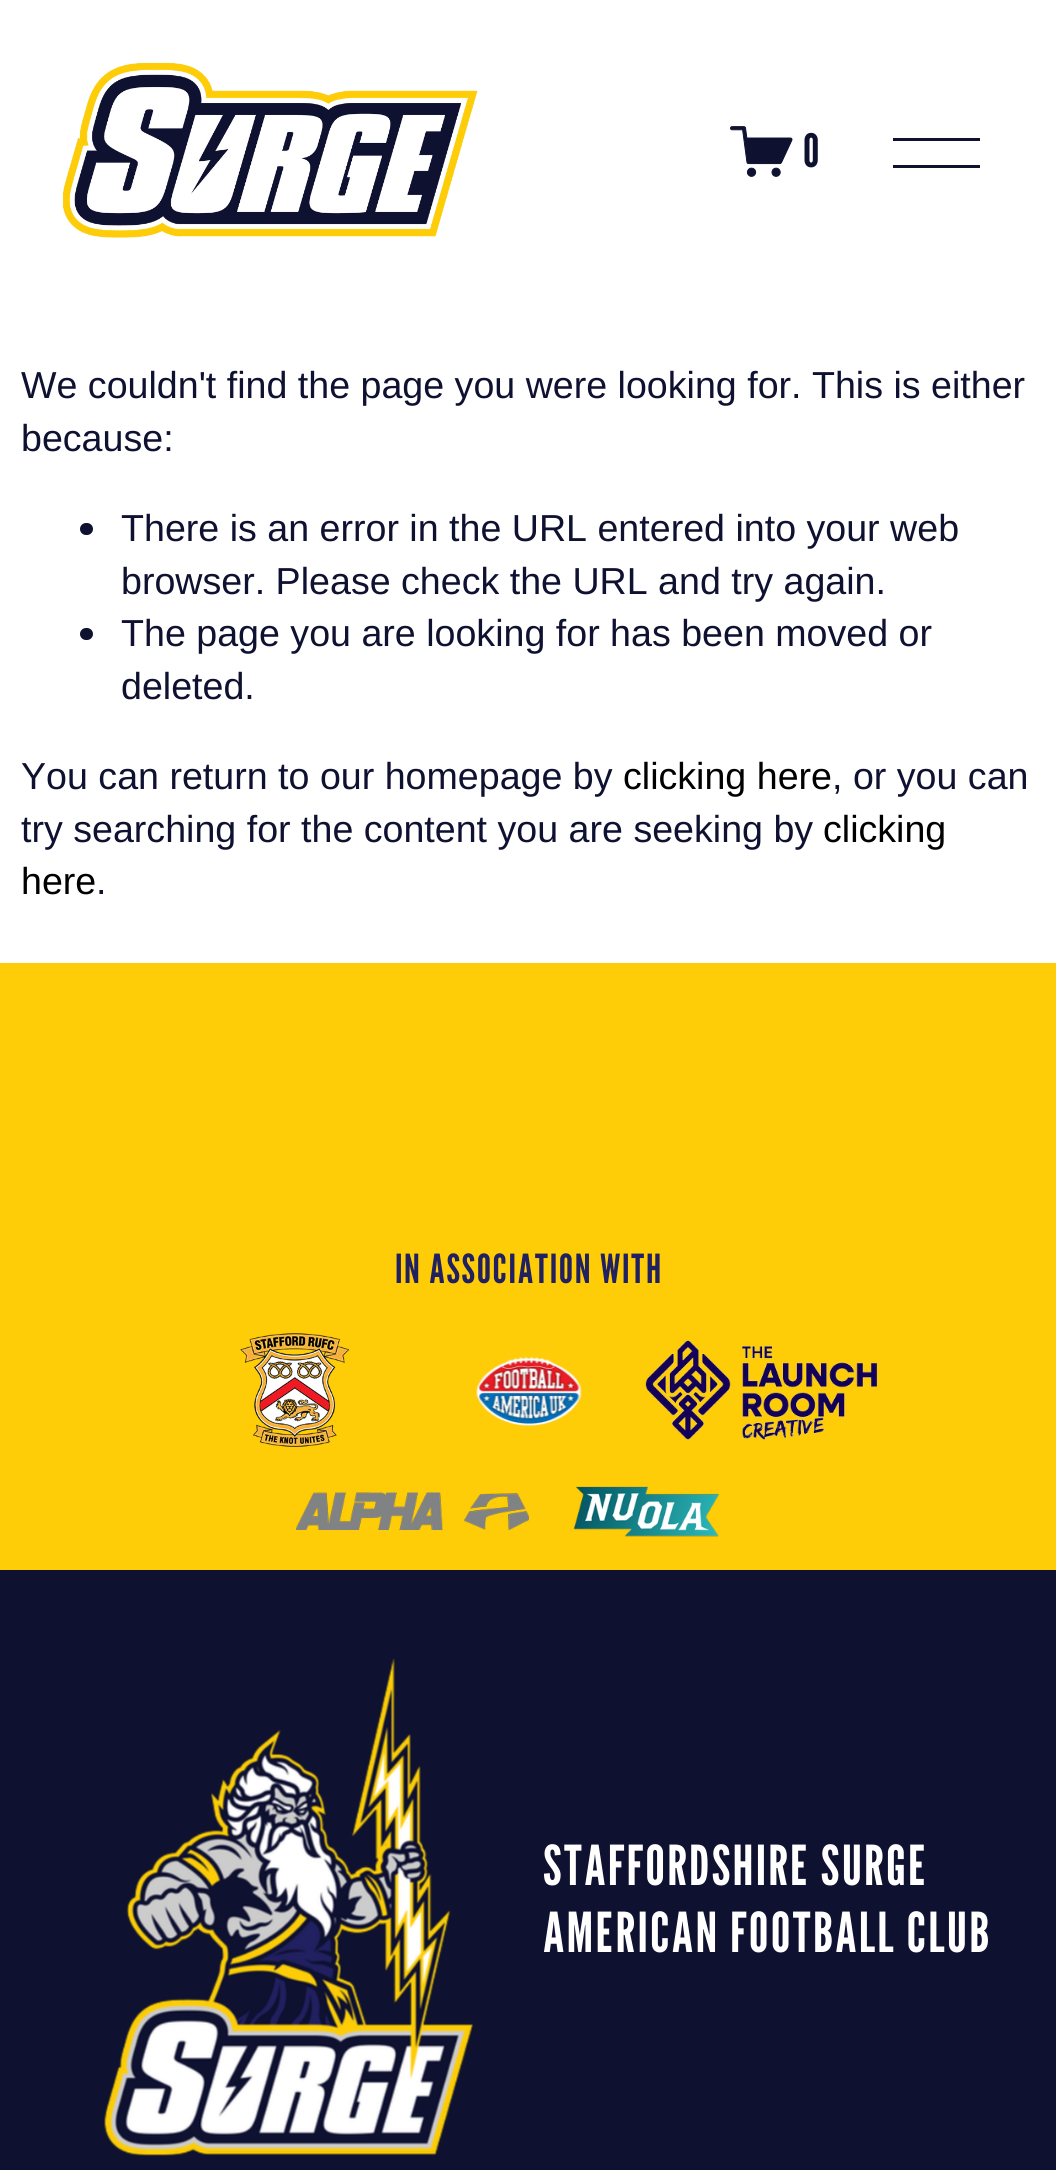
import math
import cairo

surface = cairo.ImageSurface(cairo.FORMAT_RGB24, 1056, 2170)
ctx = cairo.Context(surface)
options = cairo.FontOptions()
options.set_hint_metrics(cairo.HINT_METRICS_OFF)
options.set_hint_style(cairo.HINT_STYLE_NONE)
ctx.set_font_options(options)
ctx.set_miter_limit(4)


def set_color(code):
    ctx.set_source_rgb(*(v / 255 for v in bytes.fromhex(code[-6:])))


def draw_text(x, y, s, family, size, color, bold=False, italic=False):
    ctx.select_font_face(family, cairo.FONT_SLANT_ITALIC if italic else cairo.FONT_SLANT_NORMAL, cairo.FONT_WEIGHT_BOLD if bold else cairo.FONT_WEIGHT_NORMAL)
    ctx.set_font_size(size)
    set_color(color)
    ctx.move_to(x, y)
    ctx.show_text(s)


def draw_spaced(x, y, s, letter, word):
    ctx.move_to(x, y)
    for ch in s:
        ctx.show_text(ch)
        ctx.rel_move_to(letter + word * (ch == ' '), 0)


def fill_rect(x, y, w, h, color):
    set_color(color)
    ctx.rectangle(x, y, w, h)
    ctx.fill()


def rounded_rect(x, y, w, h, r):
    ctx.new_sub_path()
    for i, (u, v) in enumerate([(x + w - r, y + h - r), (x + r, y + h - r), (x + r, y + r), (x + w - r, y + r)]):
        ctx.arc(u, v, r, i * math.pi / 2, (i + 1) * math.pi / 2)
    ctx.close_path()


def draw_image(path, x, y, w, h):
    ctx.save()
    ctx.set_source_surface(cairo.ImageSurface.create_from_png(path), x, y)
    ctx.rectangle(x, y, w, h)
    ctx.fill()
    ctx.restore()


set_color("#ffffff")
ctx.paint()
draw_image("assets/img1.png", 63, 63, 415, 175)
draw_image("assets/img2.png", 730, 126, 63, 51)
ctx.select_font_face("League Gothic")
ctx.set_font_size(46)
set_color("#0f1131")
draw_spaced(803, 167, "0", 2, 0)
fill_rect(893, 138, 87, 3, "#0f1131")
fill_rect(893, 165, 87, 3, "#0f1131")
draw_text(21, 398, "We couldn't find the page you were looking for. This is either", "Liberation Sans", 37.6, "#0f1131")
draw_text(21, 451, "because:", "Liberation Sans", 37.6, "#0f1131")
rounded_rect(80, 523, 13, 12, 6)
ctx.fill()
draw_text(121, 541, "There is an error in the URL entered into your web", "Liberation Sans", 37.6, "#0f1131")
draw_text(121, 594, "browser. Please check the URL and try again.", "Liberation Sans", 37.6, "#0f1131")
rounded_rect(80, 628, 13, 12, 6)
ctx.fill()
draw_text(121, 646, "The page you are looking for has been moved or", "Liberation Sans", 37.6, "#0f1131")
draw_text(121, 699, "deleted.", "Liberation Sans", 37.6, "#0f1131")
draw_text(21, 789, "You can return to our homepage by", "Liberation Sans", 37.6, "#0f1131")
draw_text(623, 789, "clicking here", "Liberation Sans", 37.6, "#000000")
draw_text(832, 789, ", or you can", "Liberation Sans", 37.6, "#0f1131")
draw_text(21, 842, "try searching for the content you are seeking by", "Liberation Sans", 37.6, "#0f1131")
draw_text(823, 842, "clicking", "Liberation Sans", 37.6, "#000000")
draw_text(21, 894, "here", "Liberation Sans", 37.6, "#000000")
draw_text(96, 894, ".", "Liberation Sans", 37.6, "#0f1131")
fill_rect(0, 963, 1056, 607, "#fecd08")
ctx.select_font_face("League Gothic")
ctx.set_font_size(40)
set_color("#212060")
draw_spaced(395, 1283, "IN ASSOCIATION WITH", 1.6, 0)
draw_image("assets/img3.png", 240, 1333, 109, 114)
draw_image("assets/img4.png", 476, 1356, 106, 70)
draw_image("assets/img5.png", 645, 1340, 233, 100)
draw_image("assets/img6.png", 296, 1492, 233, 38)
draw_image("assets/img7.png", 573, 1486, 146, 51)
fill_rect(0, 1570, 1056, 600, "#0f1131")
draw_image("assets/img8.png", 104, 1658, 369, 498)
ctx.set_font_size(55)
set_color("#ffffff")
draw_spaced(543, 1885, "STAFFORDSHIRE SURGE", 2.2, 0)
draw_spaced(543, 1952, "AMERICAN FOOTBALL CLUB", 2.2, 0)
surface.write_to_png("output.png")
